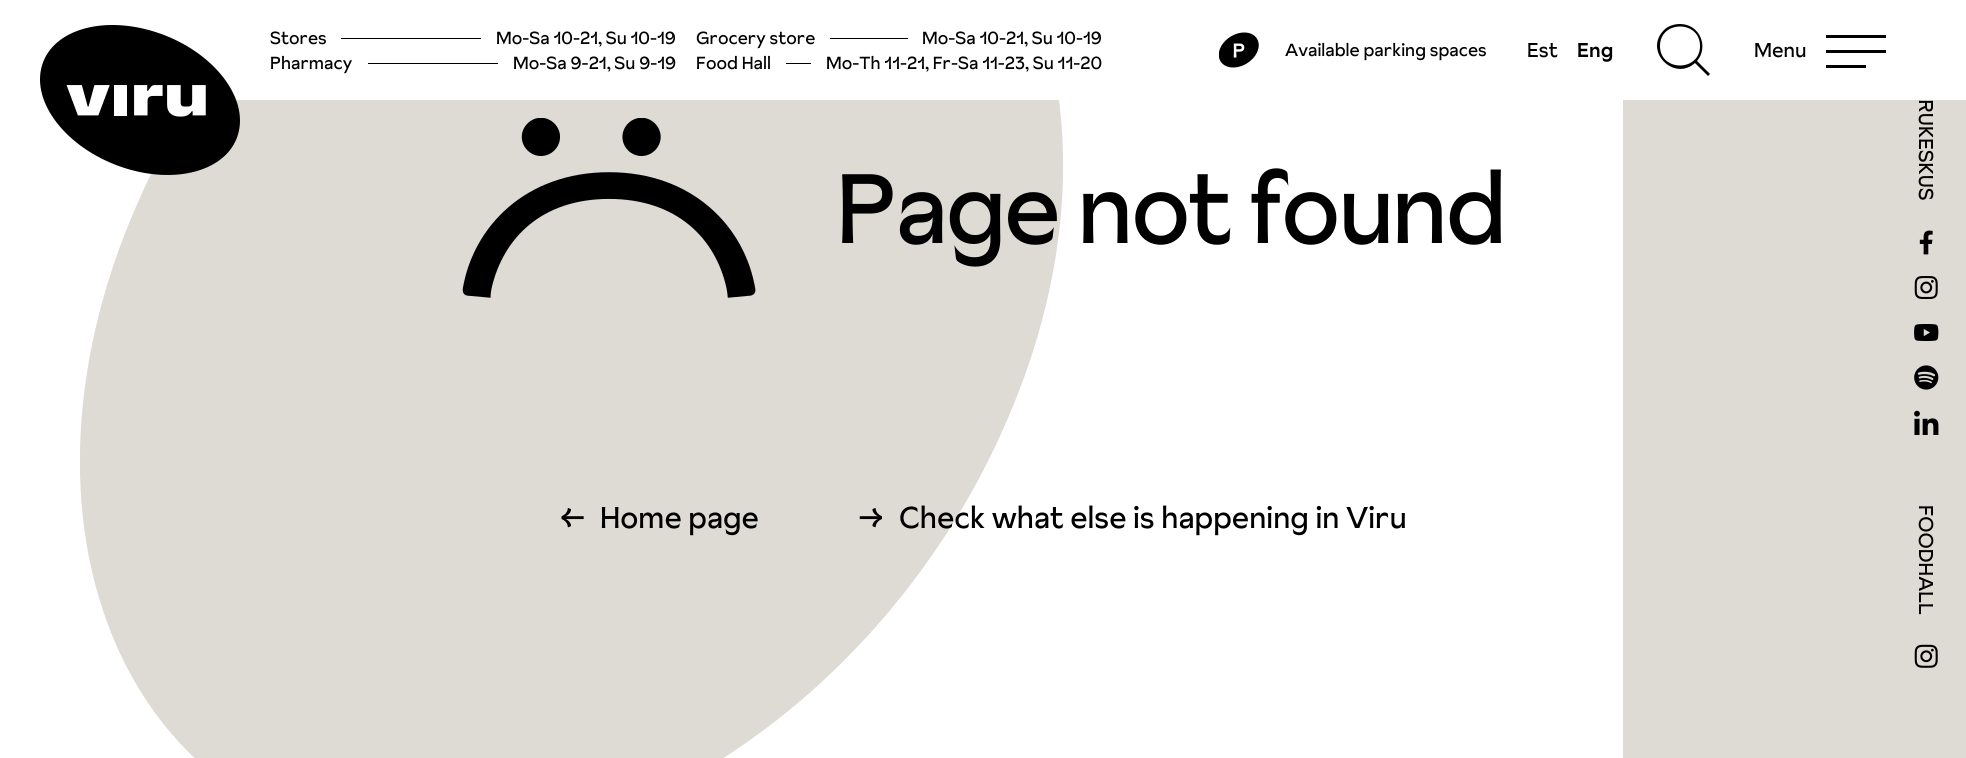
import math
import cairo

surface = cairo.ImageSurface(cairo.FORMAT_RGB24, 1966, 758)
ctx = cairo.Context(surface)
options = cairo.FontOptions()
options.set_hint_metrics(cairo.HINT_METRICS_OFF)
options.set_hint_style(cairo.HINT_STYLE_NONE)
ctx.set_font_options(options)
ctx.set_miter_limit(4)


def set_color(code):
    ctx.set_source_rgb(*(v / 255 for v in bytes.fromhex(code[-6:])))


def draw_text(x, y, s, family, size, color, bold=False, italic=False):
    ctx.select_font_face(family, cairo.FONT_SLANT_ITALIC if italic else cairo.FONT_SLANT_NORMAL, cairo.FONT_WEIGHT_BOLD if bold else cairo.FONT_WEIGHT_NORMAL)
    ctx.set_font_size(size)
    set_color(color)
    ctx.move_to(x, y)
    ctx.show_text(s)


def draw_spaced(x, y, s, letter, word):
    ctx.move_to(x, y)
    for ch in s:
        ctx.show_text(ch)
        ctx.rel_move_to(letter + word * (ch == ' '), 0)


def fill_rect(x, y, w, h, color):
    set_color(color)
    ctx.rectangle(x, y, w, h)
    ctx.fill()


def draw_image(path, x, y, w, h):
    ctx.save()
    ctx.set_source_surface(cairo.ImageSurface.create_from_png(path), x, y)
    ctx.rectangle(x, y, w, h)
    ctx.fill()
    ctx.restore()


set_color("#ffffff")
ctx.paint()
fill_rect(1623, 100, 343, 658, "#dedad4")
ctx.save()
ctx.translate(1919, 80)
ctx.rotate(90 * math.pi / 180)
draw_text(0, 0, "VIRUKESKUS", "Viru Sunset", 20, "#000000")
ctx.restore()
ctx.save()
ctx.rectangle(80, 0, 984, 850)
ctx.clip()
set_color("#dedad4")
ctx.new_path()
ctx.move_to(1008, 418)
ctx.curve_to(884, 709, 588, 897, 346, 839)
ctx.curve_to(105, 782, 10, 499, 135, 209)
ctx.curve_to(259, -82, 556, -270, 797, -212)
ctx.curve_to(1038, -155, 1133, 128, 1008, 418)
ctx.close_path()
ctx.fill()
ctx.restore()
fill_rect(192, 0, 1742, 100, "#ffffff")
draw_image("assets/img1.png", 40, 25, 200, 150)
draw_text(270, 44, "Stores", "Viru Sunset", 17.5, "#000000")
fill_rect(341, 38, 140, 1, "#000000")
draw_text(496, 44, "Mo-Sa 10-21, Su 10-19", "Viru Sunset", 17.5, "#000000")
draw_text(696, 44, "Grocery store", "Viru Sunset", 17.5, "#000000")
fill_rect(830, 38, 78, 1, "#000000")
draw_text(922, 44, "Mo-Sa 10-21, Su 10-19", "Viru Sunset", 17.5, "#000000")
draw_text(270, 69, "Pharmacy", "Viru Sunset", 17.5, "#000000")
fill_rect(368, 63, 130, 1, "#000000")
draw_text(513, 69, "Mo-Sa 9-21, Su 9-19", "Viru Sunset", 17.5, "#000000")
draw_text(696, 69, "Food Hall", "Viru Sunset", 17.5, "#000000")
fill_rect(786, 63, 25, 1, "#000000")
draw_text(826, 69, "Mo-Th 11-21, Fr-Sa 11-23, Su 11-20", "Viru Sunset", 17.5, "#000000")
draw_image("assets/img2.png", 1219, 32, 40, 36)
draw_text(1285, 56, "Available parking spaces", "Viru Sunset", 17.5, "#000000")
draw_text(1527, 57, "Est", "Viru Sunset", 20, "#000000")
draw_text(1577, 57, "Eng", "Viru Sunset Medium", 20, "#000000")
ctx.set_fill_rule(cairo.FILL_RULE_EVEN_ODD)
ctx.new_path()
ctx.move_to(1660, 46)
ctx.curve_to(1660, 20, 1700, 20, 1700, 46)
ctx.curve_to(1700, 72, 1660, 72, 1660, 46)
ctx.close_path()
ctx.move_to(1680, 24)
ctx.curve_to(1674, 24, 1668, 26, 1664, 30)
ctx.curve_to(1643, 51, 1674, 82, 1695, 63)
ctx.line_to(1708, 76)
ctx.line_to(1710, 74)
ctx.line_to(1697, 61)
ctx.curve_to(1709, 47, 1700, 24, 1680, 24)
ctx.close_path()
ctx.fill()
draw_text(1754, 57, "Menu", "Viru Sunset", 20, "#000000")
fill_rect(1826, 35, 60, 3, "#000000")
fill_rect(1826, 50, 60, 3, "#000000")
fill_rect(1826, 65, 40, 3, "#000000")
draw_image("assets/img3.png", 1919, 230, 14, 25)
draw_image("assets/img4.png", 1914, 276, 24, 24)
draw_image("assets/img5.png", 1914, 324, 25, 17)
draw_image("assets/img6.png", 1914, 365, 25, 25)
draw_image("assets/img7.png", 1914, 410, 25, 25)
ctx.save()
ctx.translate(1919, 505)
ctx.rotate(90 * math.pi / 180)
draw_text(0, 0, "FOODHALL", "Viru Sunset", 20, "#000000")
ctx.restore()
draw_image("assets/img8.png", 1914, 644, 24, 24)
draw_image("assets/img9.png", 462, 118, 294, 180)
ctx.select_font_face("Viru Sunset")
ctx.set_font_size(98.25)
set_color("#000000")
draw_spaced(836, 243, "Page not found", -2.4, 0)
draw_image("assets/img10.png", 561, 508, 23, 20)
draw_text(600, 528, "Home page", "Viru Sunset", 30, "#000000")
draw_image("assets/img11.png", 859, 508, 23, 20)
draw_text(899, 528, "Check what else is happening in Viru", "Viru Sunset", 30, "#000000")
surface.write_to_png("output.png")
